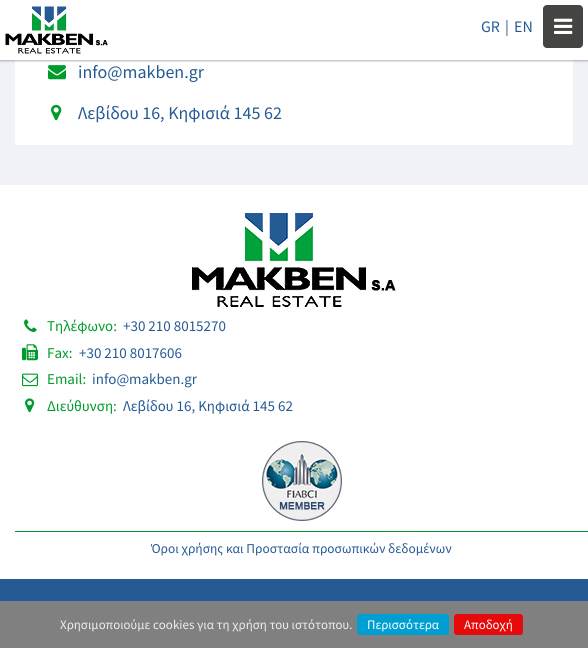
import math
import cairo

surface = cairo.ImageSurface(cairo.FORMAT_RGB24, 588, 648)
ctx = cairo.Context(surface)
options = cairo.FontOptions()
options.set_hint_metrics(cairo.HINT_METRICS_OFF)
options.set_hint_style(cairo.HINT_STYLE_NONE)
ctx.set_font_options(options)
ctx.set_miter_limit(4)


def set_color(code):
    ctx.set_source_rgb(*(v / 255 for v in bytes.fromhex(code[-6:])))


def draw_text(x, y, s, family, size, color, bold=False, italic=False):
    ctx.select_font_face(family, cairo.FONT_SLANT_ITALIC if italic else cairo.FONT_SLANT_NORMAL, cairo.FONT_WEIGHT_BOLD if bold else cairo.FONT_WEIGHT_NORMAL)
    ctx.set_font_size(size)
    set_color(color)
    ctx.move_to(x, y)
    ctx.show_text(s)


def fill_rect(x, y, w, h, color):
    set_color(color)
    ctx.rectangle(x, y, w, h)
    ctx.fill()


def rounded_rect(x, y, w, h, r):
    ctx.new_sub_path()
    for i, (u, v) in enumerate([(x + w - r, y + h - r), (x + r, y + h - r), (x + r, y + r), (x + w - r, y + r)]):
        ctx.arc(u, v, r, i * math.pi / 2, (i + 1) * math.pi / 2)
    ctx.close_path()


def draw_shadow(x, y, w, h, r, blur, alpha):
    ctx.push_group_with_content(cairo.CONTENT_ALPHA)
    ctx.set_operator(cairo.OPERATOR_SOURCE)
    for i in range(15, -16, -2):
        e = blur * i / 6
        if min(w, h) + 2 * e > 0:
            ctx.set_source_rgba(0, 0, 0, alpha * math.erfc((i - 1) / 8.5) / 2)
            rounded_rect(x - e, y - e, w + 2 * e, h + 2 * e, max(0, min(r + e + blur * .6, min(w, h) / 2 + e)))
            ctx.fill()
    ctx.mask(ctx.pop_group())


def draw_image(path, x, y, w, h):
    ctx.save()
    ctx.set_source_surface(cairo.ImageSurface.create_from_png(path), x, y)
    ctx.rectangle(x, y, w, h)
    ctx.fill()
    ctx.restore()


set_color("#f1f2f7")
ctx.paint()
fill_rect(15, 60, 558, 85, "#ffffff")
set_color("#000000")
draw_shadow(0, 1, 588, 60, 0, 1, 0.3)
fill_rect(0, 0, 588, 60, "#ffffff")
draw_image("assets/img1.png", 5, 6, 103, 48)
draw_text(481, 32, "GR", "Source Sans Pro", 16, "#255a95")
draw_text(505, 32, "|", "Source Sans Pro", 16, "#255a95")
draw_text(514, 32, "EN", "Source Sans Pro", 16, "#255a95")
set_color("#444442")
rounded_rect(543.5, 5.5, 39, 42, 3.5)
ctx.fill_preserve()
ctx.set_line_width(1)
ctx.stroke()
draw_image("assets/img2.png", 554, 18, 19, 16)
draw_image("assets/img3.png", 48, 65, 18, 15)
draw_text(78, 78, "info@makben.gr", "Source Sans Pro", 18, "#255a95")
draw_image("assets/img4.png", 51, 104, 11, 17)
draw_text(78, 119, "Λεβίδου 16, Κηφισιά 145 62", "Source Sans Pro", 18, "#255a95")
fill_rect(0, 185, 588, 394, "#ffffff")
draw_image("assets/img5.png", 192, 213, 204, 94)
draw_image("assets/img6.png", 24, 319, 13, 13)
draw_text(47, 331, "Τηλέφωνο:", "Source Sans Pro", 15, "#009c2b")
draw_text(123, 331, "+30 210 8015270", "Source Sans Pro", 15, "#255a95")
draw_image("assets/img7.png", 22, 344, 16, 17)
draw_text(47, 358, "Fax:", "Source Sans Pro", 15, "#009c2b")
draw_text(79, 358, "+30 210 8017606", "Source Sans Pro", 15, "#255a95")
draw_image("assets/img8.png", 22, 373, 16, 14)
draw_text(47, 384, "Email:", "Source Sans Pro", 15, "#009c2b")
draw_text(92, 384, "info@makben.gr", "Source Sans Pro", 15, "#255a95")
draw_image("assets/img9.png", 25, 398, 10, 15)
draw_text(47, 411, "Διεύθυνση:", "Source Sans Pro", 15, "#009c2b")
draw_text(123, 411, "Λεβίδου 16, Κηφισιά 145 62", "Source Sans Pro", 15, "#255a95")
draw_image("assets/img10.png", 262, 441, 80, 80)
fill_rect(15, 531, 573, 1, "#009c2b")
draw_text(151, 553, "Όροι χρήσης και Προστασία προσωπικών δεδομένων", "Source Sans Pro", 13.5, "#255a95")
fill_rect(0, 579, 588, 22, "#255a95")
fill_rect(0, 601, 588, 47, "#808080")
draw_text(60, 629, "Χρησιμοποιούμε cookies για τη χρήση του ιστότοπου.", "Source Sans Pro", 13, "#eeeeee")
set_color("#009fd2")
rounded_rect(357, 614, 92, 21, 3)
ctx.fill()
draw_text(367, 629, "Περισσότερα", "Source Sans Pro", 13, "#ffffff")
set_color("#e60a0b")
rounded_rect(454, 614, 69, 21, 3)
ctx.fill()
draw_text(464, 629, "Αποδοχή", "Source Sans Pro", 13, "#ffffff")
surface.write_to_png("output.png")
